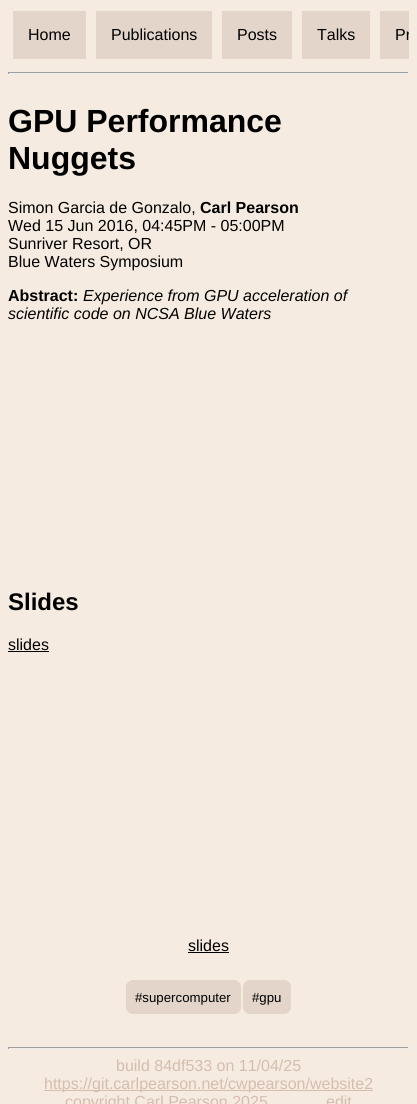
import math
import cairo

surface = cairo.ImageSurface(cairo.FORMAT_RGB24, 417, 1104)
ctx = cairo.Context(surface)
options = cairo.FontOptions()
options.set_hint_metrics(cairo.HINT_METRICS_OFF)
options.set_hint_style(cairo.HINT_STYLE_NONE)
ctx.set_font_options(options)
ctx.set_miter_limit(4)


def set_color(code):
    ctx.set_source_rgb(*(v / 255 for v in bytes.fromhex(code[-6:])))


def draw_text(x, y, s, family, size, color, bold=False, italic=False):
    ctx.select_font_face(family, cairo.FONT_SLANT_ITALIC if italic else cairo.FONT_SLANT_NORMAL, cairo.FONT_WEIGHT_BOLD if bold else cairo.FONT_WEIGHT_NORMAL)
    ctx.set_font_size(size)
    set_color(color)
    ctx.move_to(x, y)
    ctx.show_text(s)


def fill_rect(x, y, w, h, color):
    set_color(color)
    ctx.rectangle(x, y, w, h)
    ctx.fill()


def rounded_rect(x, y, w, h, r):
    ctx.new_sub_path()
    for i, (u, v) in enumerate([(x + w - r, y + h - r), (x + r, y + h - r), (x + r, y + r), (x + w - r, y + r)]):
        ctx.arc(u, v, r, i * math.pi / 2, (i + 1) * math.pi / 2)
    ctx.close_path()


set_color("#f5ebe0")
ctx.paint()
fill_rect(13, 11, 73, 48, "#e3d5ca")
draw_text(28, 40, "Home", "Liberation Sans", 16, "#000000")
fill_rect(96, 11, 116, 48, "#e3d5ca")
draw_text(111, 40, "Publications", "Liberation Sans", 16, "#000000")
fill_rect(222, 11, 70, 48, "#e3d5ca")
draw_text(237, 40, "Posts", "Liberation Sans", 16, "#000000")
fill_rect(302, 11, 68, 48, "#e3d5ca")
draw_text(317, 40, "Talks", "Liberation Sans", 16, "#000000")
fill_rect(380, 11, 29, 48, "#e3d5ca")
ctx.save()
ctx.rectangle(8, 6, 401, 58)
ctx.clip()
draw_text(395, 40, "Pr", "Liberation Sans", 16, "#000000")
ctx.restore()
fill_rect(8, 72, 401, 1, "#9f9f9f")
fill_rect(408, 72, 1, 2, "#eeeeee")
fill_rect(8, 73, 401, 1, "#eeeeee")
fill_rect(8, 72, 1, 2, "#9f9f9f")
draw_text(8, 132, "GPU Performance", "Liberation Sans", 32, "#000000", bold=True)
draw_text(8, 169, "Nuggets", "Liberation Sans", 32, "#000000", bold=True)
draw_text(8, 213, "Simon Garcia de Gonzalo,", "Liberation Sans", 16, "#000000")
draw_text(200, 213, "Carl Pearson", "Liberation Sans", 16, "#000000", bold=True)
draw_text(8, 231, "Wed 15 Jun 2016, 04:45PM - 05:00PM", "Liberation Sans", 16, "#000000")
draw_text(8, 249, "Sunriver Resort, OR", "Liberation Sans", 16, "#000000")
draw_text(8, 267, "Blue Waters Symposium", "Liberation Sans", 16, "#000000")
draw_text(8, 301, "Abstract:", "Liberation Sans", 16, "#000000", bold=True)
draw_text(83, 301, "Experience from GPU acceleration of", "Liberation Sans", 16, "#000000", italic=True)
draw_text(8, 319, "scientific code on NCSA Blue Waters", "Liberation Sans", 16, "#000000", italic=True)
draw_text(8, 610, "Slides", "Liberation Sans", 24, "#000000", bold=True)
draw_text(8, 650, "slides", "Liberation Sans", 16, "#000000")
fill_rect(8, 651, 41, 1, "#000000")
draw_text(188, 951, "slides", "Liberation Sans", 16, "#000000")
fill_rect(188, 952, 41, 1, "#000000")
set_color("#e3d5ca")
rounded_rect(126, 980, 115, 34, 7)
ctx.fill()
draw_text(135, 1002, "#supercomputer", "Liberation Sans", 13.25, "#000000")
set_color("#e3d5ca")
rounded_rect(243, 980, 48, 34, 7)
ctx.fill()
draw_text(252, 1002, "#gpu", "Liberation Sans", 13.25, "#000000")
fill_rect(8, 1047, 401, 1, "#9f9f9f")
fill_rect(408, 1047, 1, 2, "#eeeeee")
fill_rect(8, 1048, 401, 1, "#eeeeee")
fill_rect(8, 1047, 1, 2, "#9f9f9f")
draw_text(116, 1071, "build 84df533 on 11/04/25", "Liberation Sans", 16, "#d5bdaf")
fill_rect(44, 1090, 329, 1, "#d5bdaf")
draw_text(44, 1089, "https://git.carlpearson.net/cwpearson/website2", "Liberation Sans", 16, "#d5bdaf")
draw_text(65, 1107, "copyright Carl Pearson 2025", "Liberation Sans", 16, "#d5bdaf")
draw_text(326, 1107, "edit", "Liberation Sans", 16, "#d5bdaf")
surface.write_to_png("output.png")
